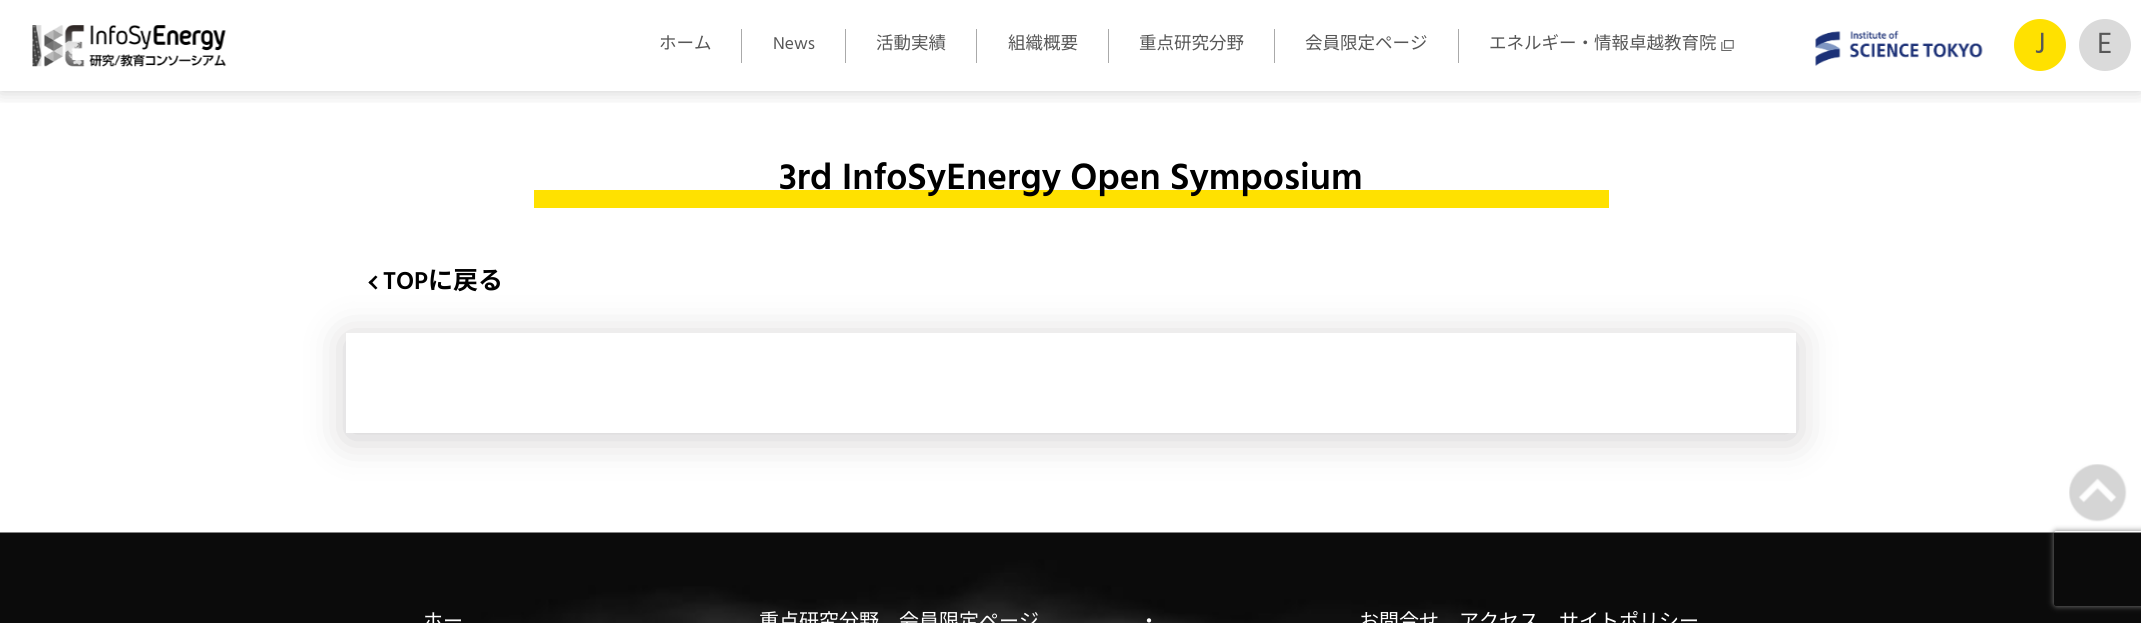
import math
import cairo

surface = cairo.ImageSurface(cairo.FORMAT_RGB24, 2141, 623)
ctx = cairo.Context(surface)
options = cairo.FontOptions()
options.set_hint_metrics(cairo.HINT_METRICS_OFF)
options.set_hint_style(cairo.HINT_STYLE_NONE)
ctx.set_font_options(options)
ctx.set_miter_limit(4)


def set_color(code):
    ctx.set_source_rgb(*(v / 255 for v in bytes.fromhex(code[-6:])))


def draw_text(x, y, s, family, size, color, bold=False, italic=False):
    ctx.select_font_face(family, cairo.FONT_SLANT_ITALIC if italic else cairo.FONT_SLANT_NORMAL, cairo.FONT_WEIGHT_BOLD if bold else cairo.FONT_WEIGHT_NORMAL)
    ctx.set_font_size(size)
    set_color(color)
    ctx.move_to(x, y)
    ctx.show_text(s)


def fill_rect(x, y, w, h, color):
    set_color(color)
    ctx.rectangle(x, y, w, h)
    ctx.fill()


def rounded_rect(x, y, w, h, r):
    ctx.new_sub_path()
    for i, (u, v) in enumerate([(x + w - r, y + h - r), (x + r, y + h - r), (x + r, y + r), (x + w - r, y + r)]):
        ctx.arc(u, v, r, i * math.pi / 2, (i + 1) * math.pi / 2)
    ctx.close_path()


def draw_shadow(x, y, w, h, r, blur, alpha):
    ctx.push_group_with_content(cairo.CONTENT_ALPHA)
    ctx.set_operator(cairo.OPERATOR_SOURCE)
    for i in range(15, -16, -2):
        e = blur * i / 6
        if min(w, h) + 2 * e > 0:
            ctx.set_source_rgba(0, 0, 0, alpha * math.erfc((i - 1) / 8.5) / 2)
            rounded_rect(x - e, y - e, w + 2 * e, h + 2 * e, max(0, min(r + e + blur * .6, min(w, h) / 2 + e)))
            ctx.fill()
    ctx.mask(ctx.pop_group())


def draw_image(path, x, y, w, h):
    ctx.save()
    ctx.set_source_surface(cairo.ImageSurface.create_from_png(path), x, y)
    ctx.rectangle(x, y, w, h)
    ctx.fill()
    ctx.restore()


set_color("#ffffff")
ctx.paint()
ctx.save()
ctx.rectangle(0, 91, 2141, 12)
ctx.clip()
set_color("#000000")
draw_shadow(0, 0, 2141, 91, 0, 9.5, 0.2)
ctx.restore()
draw_image("assets/img1.png", 32, 25, 195, 42)
fill_rect(741, 29, 1, 34, "#aaaaaa")
draw_text(659, 49, "ホーム", "Noto Sans JP", 17.5, "#575757")
fill_rect(845, 29, 1, 34, "#aaaaaa")
draw_text(773, 49, "News", "Hind", 17.5, "#575757")
fill_rect(976, 29, 1, 34, "#aaaaaa")
draw_text(876, 49, "活動実績", "Noto Sans JP", 17.5, "#575757")
fill_rect(1108, 29, 1, 34, "#aaaaaa")
draw_text(1008, 49, "組織概要", "Noto Sans JP", 17.5, "#575757")
fill_rect(1274, 29, 1, 34, "#aaaaaa")
draw_text(1139, 49, "重点研究分野", "Noto Sans JP", 17.5, "#575757")
fill_rect(1458, 29, 1, 34, "#aaaaaa")
draw_text(1305, 49, "会員限定ページ", "Noto Sans JP", 17.5, "#575757")
draw_text(1489, 49, "エネルギー・情報卓越教育院", "Noto Sans JP", 17.5, "#575757")
draw_image("assets/img2.png", 1721, 40, 13, 11)
draw_image("assets/img3.png", 1815, 30, 168, 36)
set_color("#ffe100")
ctx.arc(2040, 45, 26, 0, 2 * math.pi)
ctx.fill()
draw_text(2035, 53, "J", "Hind", 30, "#575757")
set_color("#dadada")
ctx.new_path()
ctx.arc(2105, 45, 26, 0, 2 * math.pi)
ctx.fill()
draw_text(2097, 53, "E", "Hind", 30, "#575757")
fill_rect(534, 190, 1075, 18, "#ffe100")
draw_text(779, 189, "3rd InfoSyEnergy Open Symposium", "Hind SemiBold", 37.5, "#000000")
ctx.save()
ctx.set_fill_rule(cairo.FILL_RULE_EVEN_ODD)
ctx.new_path()
ctx.move_to(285, 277)
ctx.line_to(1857, 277)
ctx.line_to(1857, 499)
ctx.line_to(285, 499)
ctx.close_path()
ctx.move_to(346, 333)
ctx.line_to(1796, 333)
ctx.line_to(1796, 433)
ctx.line_to(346, 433)
ctx.close_path()
ctx.clip()
set_color("#0b0306")
draw_shadow(346, 338, 1450, 100, 0, 20, 0.2)
ctx.restore()
ctx.new_path()
ctx.move_to(368.5, 282.5)
ctx.line_to(375.5, 275.5)
ctx.line_to(377.5, 277)
ctx.line_to(370.5, 284.5)
ctx.close_path()
ctx.fill()
ctx.new_path()
ctx.move_to(368.5, 282.5)
ctx.line_to(370.5, 280.5)
ctx.line_to(377.5, 288)
ctx.line_to(375.5, 289.5)
ctx.close_path()
ctx.fill()
draw_text(383, 289, "TOP", "Hind SemiBold", 25, "#000000")
draw_text(428, 289, "に戻る", "Noto Sans JP", 25, "#000000", bold=True)
draw_image("assets/img5.png", 0, 532, 2141, 91)
ctx.save()
ctx.set_fill_rule(cairo.FILL_RULE_EVEN_ODD)
ctx.new_path()
ctx.move_to(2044, 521)
ctx.line_to(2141, 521)
ctx.line_to(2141, 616)
ctx.line_to(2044, 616)
ctx.close_path()
ctx.move_to(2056.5, 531)
ctx.line_to(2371.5, 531)
ctx.curve_to(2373, 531, 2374, 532, 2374, 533.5)
ctx.line_to(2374, 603.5)
ctx.curve_to(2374, 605, 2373, 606, 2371.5, 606)
ctx.line_to(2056.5, 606)
ctx.curve_to(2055, 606, 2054, 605, 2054, 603.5)
ctx.line_to(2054, 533.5)
ctx.curve_to(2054, 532, 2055, 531, 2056.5, 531)
ctx.close_path()
ctx.clip()
set_color("#808080")
draw_shadow(2054, 531, 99, 75, 2.5, 3, 1)
ctx.restore()
draw_image("assets/img4.png", 2069, 464, 58, 58)
draw_text(423, 628, "ホー", "Noto Sans JP", 20, "#ffffff")
draw_text(759, 628, "重点研究分野", "Noto Sans JP", 20, "#ffffff")
draw_text(899, 628, "会員限定ページ", "Noto Sans JP", 20, "#ffffff")
draw_text(1139, 628, "・", "Noto Sans JP", 20, "#ffffff")
draw_text(1359, 628, "お問合せ", "Noto Sans JP", 20, "#ffffff")
draw_text(1459, 628, "アクセス", "Noto Sans JP", 20, "#ffffff")
draw_text(1559, 628, "サイトポリシー", "Noto Sans JP", 20, "#ffffff")
surface.write_to_png("output.png")
